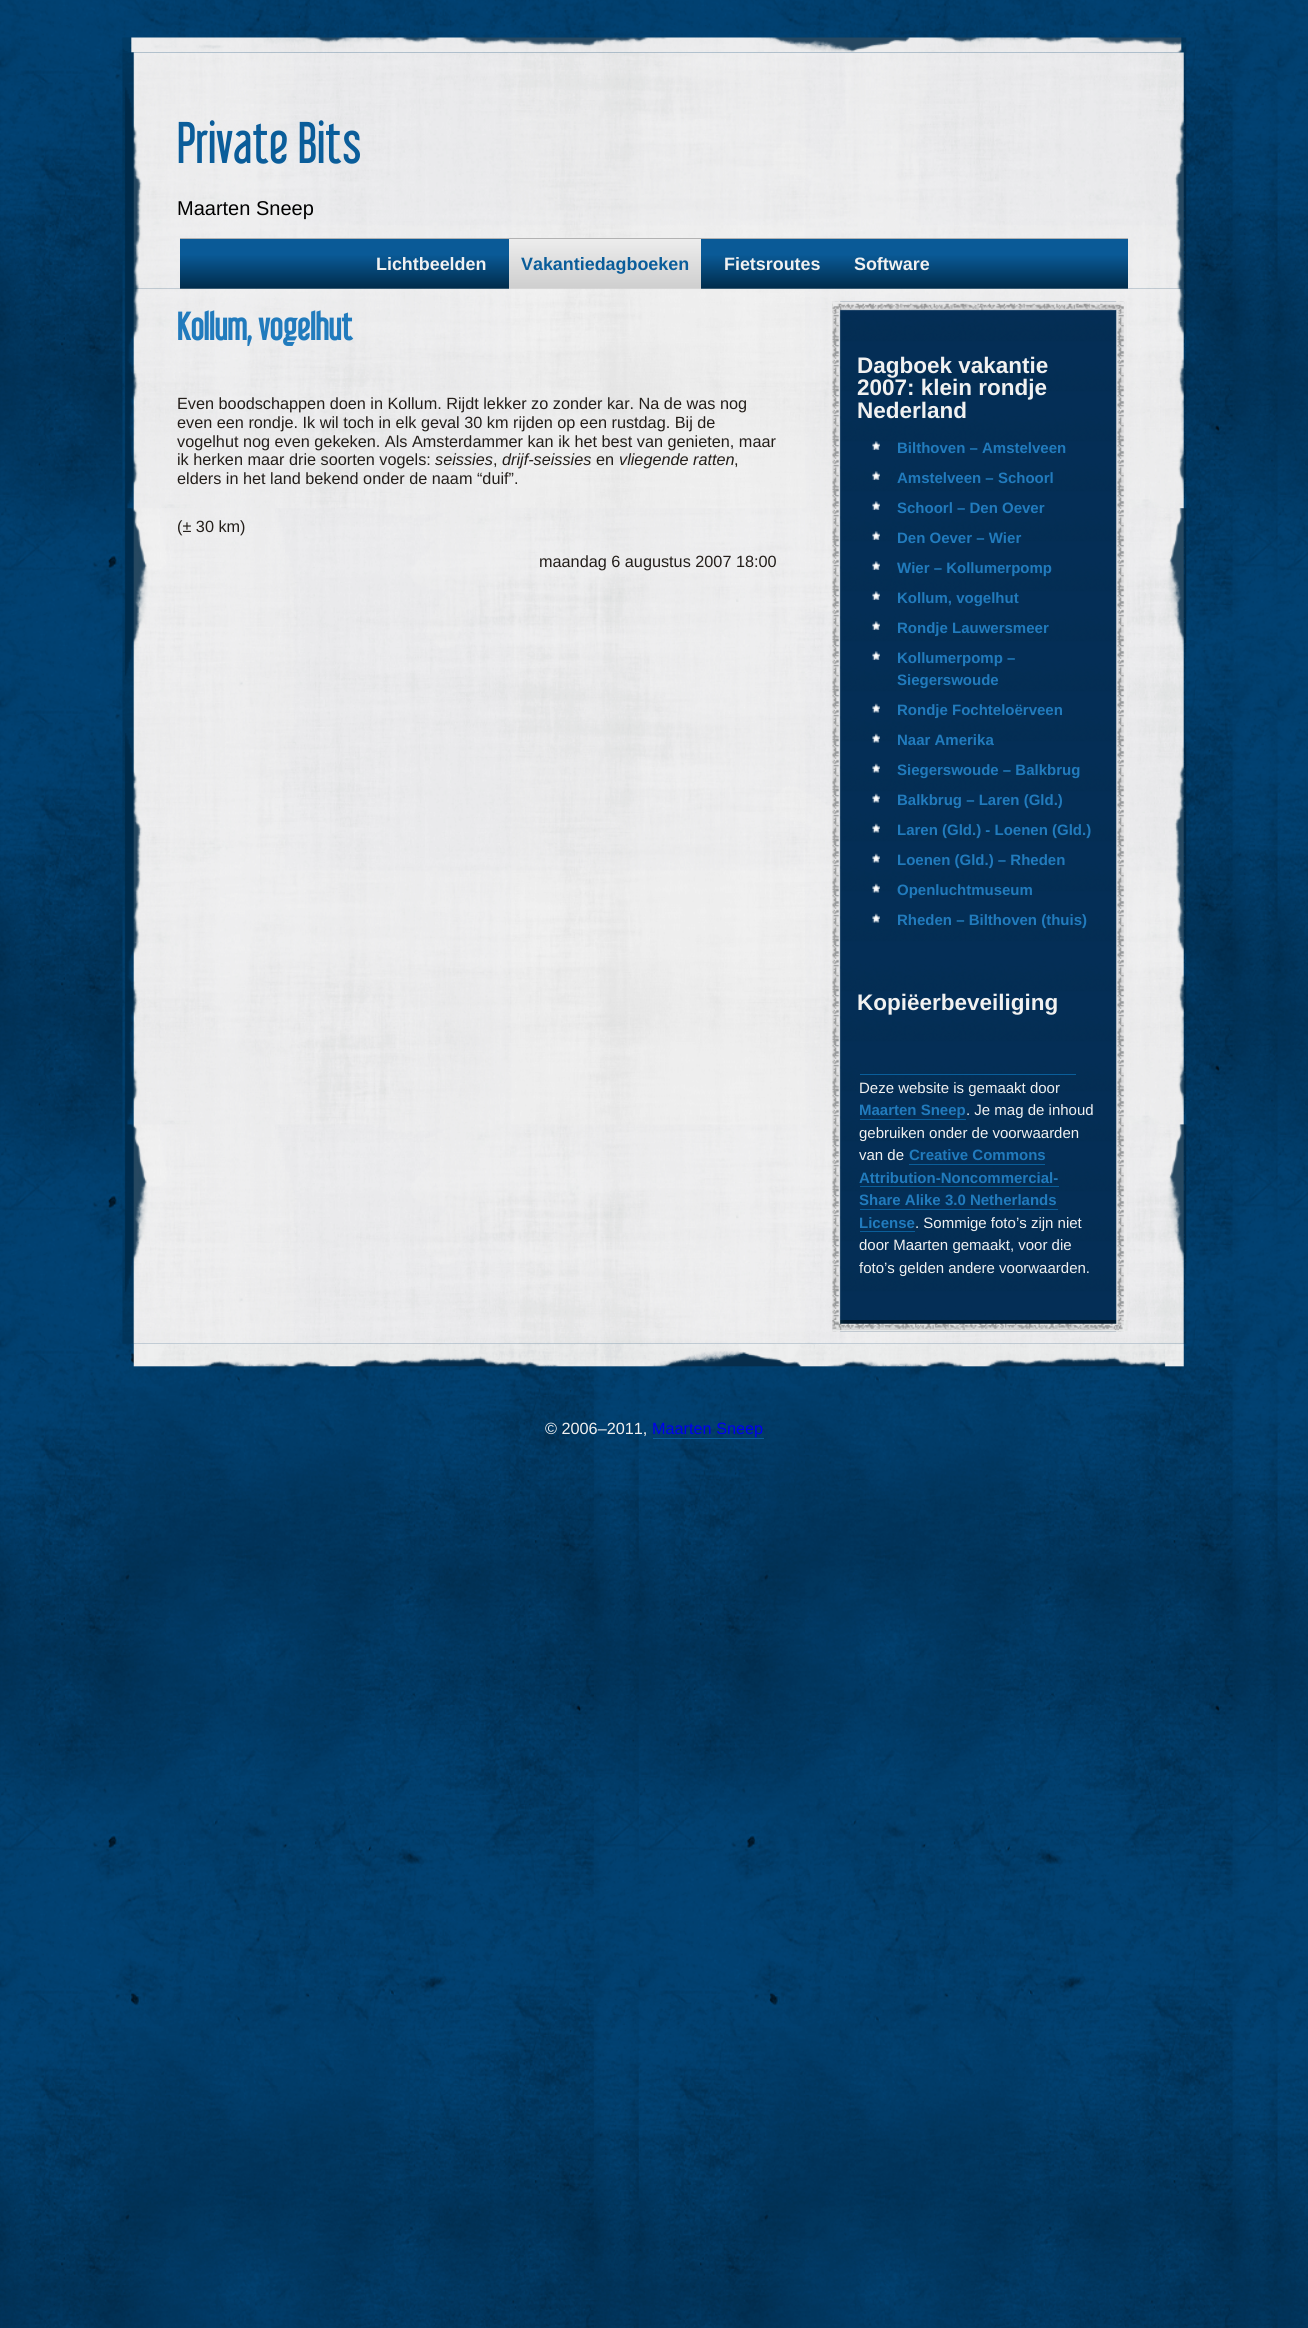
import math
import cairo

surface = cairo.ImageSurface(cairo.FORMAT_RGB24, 1308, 2328)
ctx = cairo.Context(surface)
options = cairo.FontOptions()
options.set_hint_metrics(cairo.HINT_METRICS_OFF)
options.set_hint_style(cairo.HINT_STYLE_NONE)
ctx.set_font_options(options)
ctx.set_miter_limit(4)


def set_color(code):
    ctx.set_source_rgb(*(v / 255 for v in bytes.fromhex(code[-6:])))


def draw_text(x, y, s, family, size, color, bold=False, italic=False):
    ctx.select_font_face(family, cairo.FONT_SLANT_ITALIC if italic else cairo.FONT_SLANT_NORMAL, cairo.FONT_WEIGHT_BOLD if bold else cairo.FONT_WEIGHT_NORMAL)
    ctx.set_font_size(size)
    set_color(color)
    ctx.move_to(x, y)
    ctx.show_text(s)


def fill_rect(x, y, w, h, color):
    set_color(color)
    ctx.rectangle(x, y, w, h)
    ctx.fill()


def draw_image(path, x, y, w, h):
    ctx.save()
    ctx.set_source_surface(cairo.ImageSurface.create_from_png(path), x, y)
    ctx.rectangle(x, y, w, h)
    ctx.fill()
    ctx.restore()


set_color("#ffffff")
ctx.paint()
draw_image("assets/img1.png", 0, 0, 1308, 2328)
draw_image("assets/img2.png", 122, 37, 1065, 16)
draw_image("assets/img3.png", 122, 52, 1065, 237)
draw_text(177, 163, "Private Bits", "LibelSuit", 52.5, "#0a5d9a")
draw_text(177, 215, "Maarten Sneep", "Liberation Sans", 20, "#000000")
gradient = cairo.LinearGradient(180, 289, 180, 239)
gradient.add_color_stop_rgba(0, 0, 0.169, 0.29, 1)
gradient.add_color_stop_rgba(0.69, 0.039, 0.353, 0.592, 1)
ctx.set_source(gradient)
ctx.rectangle(180, 239, 948, 50)
ctx.fill()
fill_rect(180, 238, 948, 1, "#b2b2b2")
draw_text(376, 270, "Lichtbeelden", "Liberation Sans", 17.9, "#f1f1f1", bold=True)
gradient = cairo.LinearGradient(509, 289, 509, 239)
gradient.add_color_stop_rgba(0, 0.808, 0.808, 0.808, 1)
gradient.add_color_stop_rgba(1, 0.929, 0.929, 0.929, 1)
ctx.set_source(gradient)
ctx.rectangle(509, 239, 192, 50)
ctx.fill()
draw_text(521, 270, "Vakantiedagboeken", "Liberation Sans", 17.9, "#0a5d9a", bold=True)
draw_text(724, 270, "Fietsroutes", "Liberation Sans", 17.9, "#f1f1f1", bold=True)
draw_text(854, 270, "Software", "Liberation Sans", 17.9, "#f1f1f1", bold=True)
draw_image("assets/img18.png", 133, 1343, 1051, 24)
draw_image("assets/img4.png", 122, 288, 1065, 1056)
draw_text(177, 340, "Kollum, vogelhut", "LibelSuit", 35, "#217bbd", bold=True)
draw_text(177, 409, "Even boodschappen doen in Kollum. Rijdt lekker zo zonder kar. Na de was nog", "Liberation Sans", 16.25, "#231e1a")
draw_text(177, 428, "even een rondje. Ik wil toch in elk geval 30 km rijden op een rustdag. Bij de", "Liberation Sans", 16.25, "#231e1a")
draw_text(177, 447, "vogelhut nog even gekeken. Als Amsterdammer kan ik het best van genieten, maar", "Liberation Sans", 16.25, "#231e1a")
draw_text(177, 465, "ik herken maar drie soorten vogels:", "Liberation Sans", 16.25, "#231e1a")
draw_text(435, 465, "seissies", "Liberation Sans", 16.25, "#231e1a", italic=True)
draw_text(493, 465, ",", "Liberation Sans", 16.25, "#231e1a")
draw_text(502, 465, "drijf-seissies", "Liberation Sans", 16.25, "#231e1a", italic=True)
draw_text(596, 465, "en", "Liberation Sans", 16.25, "#231e1a")
draw_text(619, 465, "vliegende ratten", "Liberation Sans", 16.25, "#231e1a", italic=True)
draw_text(734, 465, ",", "Liberation Sans", 16.25, "#231e1a")
draw_text(177, 484, "elders in het land bekend onder de naam “duif”.", "Liberation Sans", 16.25, "#231e1a")
draw_text(177, 532, "(± 30 km)", "Liberation Sans", 16.25, "#231e1a")
draw_text(539, 567, "maandag 6 augustus 2007 18:00", "Liberation Sans", 16.25, "#231e1a")
draw_image("assets/img5.png", 832, 301, 295, 1031)
draw_image("assets/img6.png", 832, 301, 292, 12)
draw_text(857, 373, "Dagboek vakantie", "Liberation Sans", 22.5, "#f1f1f1", bold=True)
draw_text(857, 395, "2007: klein rondje", "Liberation Sans", 22.5, "#f1f1f1", bold=True)
draw_text(857, 418, "Nederland", "Liberation Sans", 22.5, "#f1f1f1", bold=True)
draw_image("assets/img7.png", 872, 441, 8, 9)
draw_text(897, 453, "Bilthoven – Amstelveen", "Liberation Sans", 15, "#217bbd", bold=True)
draw_image("assets/img8.png", 872, 471, 8, 9)
draw_text(897, 483, "Amstelveen – Schoorl", "Liberation Sans", 15, "#217bbd", bold=True)
draw_image("assets/img9.png", 872, 501, 8, 9)
draw_text(897, 513, "Schoorl – Den Oever", "Liberation Sans", 15, "#217bbd", bold=True)
draw_image("assets/img10.png", 872, 531, 8, 9)
draw_text(897, 543, "Den Oever – Wier", "Liberation Sans", 15, "#217bbd", bold=True)
draw_image("assets/img11.png", 872, 561, 8, 9)
draw_text(897, 573, "Wier – Kollumerpomp", "Liberation Sans", 15, "#217bbd", bold=True)
draw_image("assets/img7.png", 872, 591, 8, 9)
draw_text(897, 603, "Kollum, vogelhut", "Liberation Sans", 15, "#217bbd", bold=True)
draw_image("assets/img8.png", 872, 621, 8, 9)
draw_text(897, 633, "Rondje Lauwersmeer", "Liberation Sans", 15, "#217bbd", bold=True)
draw_image("assets/img9.png", 872, 651, 8, 9)
draw_text(897, 663, "Kollumerpomp –", "Liberation Sans", 15, "#217bbd", bold=True)
draw_text(897, 685, "Siegerswoude", "Liberation Sans", 15, "#217bbd", bold=True)
draw_image("assets/img12.png", 872, 703, 8, 10)
draw_text(897, 715, "Rondje Fochteloërveen", "Liberation Sans", 15, "#217bbd", bold=True)
draw_image("assets/img13.png", 872, 733, 8, 10)
draw_text(897, 745, "Naar Amerika", "Liberation Sans", 15, "#217bbd", bold=True)
draw_image("assets/img14.png", 872, 763, 8, 10)
draw_text(897, 775, "Siegerswoude – Balkbrug", "Liberation Sans", 15, "#217bbd", bold=True)
draw_image("assets/img15.png", 872, 793, 8, 10)
draw_text(897, 805, "Balkbrug – Laren (Gld.)", "Liberation Sans", 15, "#217bbd", bold=True)
draw_image("assets/img16.png", 872, 823, 8, 10)
draw_text(897, 835, "Laren (Gld.) - Loenen (Gld.)", "Liberation Sans", 15, "#217bbd", bold=True)
draw_image("assets/img12.png", 872, 853, 8, 10)
draw_text(897, 865, "Loenen (Gld.) – Rheden", "Liberation Sans", 15, "#217bbd", bold=True)
draw_image("assets/img13.png", 872, 883, 8, 10)
draw_text(897, 895, "Openluchtmuseum", "Liberation Sans", 15, "#217bbd", bold=True)
draw_image("assets/img14.png", 872, 913, 8, 10)
draw_text(897, 925, "Rheden – Bilthoven (thuis)", "Liberation Sans", 15, "#217bbd", bold=True)
draw_text(857, 1010, "Kopiëerbeveiliging", "Liberation Sans", 22.5, "#f1f1f1", bold=True)
fill_rect(860, 1074, 216, 1, "#0a5e9a")
draw_text(859, 1093, "Deze website is gemaakt door", "Liberation Sans", 15, "#f1f1f1")
draw_text(859, 1115, "Maarten Sneep", "Liberation Sans", 15, "#217bbd", bold=True)
fill_rect(860, 1119, 106, 1, "#0a5e9a")
draw_text(966, 1115, ". Je mag de inhoud", "Liberation Sans", 15, "#f1f1f1")
draw_text(859, 1138, "gebruiken onder de voorwaarden", "Liberation Sans", 15, "#f1f1f1")
draw_text(859, 1160, "van de", "Liberation Sans", 15, "#f1f1f1")
draw_text(909, 1160, "Creative Commons", "Liberation Sans", 15, "#217bbd", bold=True)
fill_rect(909, 1164, 136, 1, "#0a5e9a")
draw_text(859, 1183, "Attribution-Noncommercial-", "Liberation Sans", 15, "#217bbd", bold=True)
fill_rect(860, 1186, 199, 1, "#0a5e9a")
draw_text(859, 1205, "Share Alike 3.0 Netherlands", "Liberation Sans", 15, "#217bbd", bold=True)
fill_rect(860, 1209, 198, 1, "#0a5e9a")
draw_text(859, 1228, "License", "Liberation Sans", 15, "#217bbd", bold=True)
fill_rect(860, 1231, 55, 1, "#0a5e9a")
draw_text(915, 1228, ". Sommige foto’s zijn niet", "Liberation Sans", 15, "#f1f1f1")
draw_text(859, 1250, "door Maarten gemaakt, voor die", "Liberation Sans", 15, "#f1f1f1")
draw_text(859, 1273, "foto’s gelden andere voorwaarden.", "Liberation Sans", 15, "#f1f1f1")
draw_image("assets/img17.png", 832, 1320, 296, 12)
draw_text(545, 1434, "© 2006–2011,", "Liberation Sans", 16.25, "#f1f1f1")
draw_text(652, 1434, "Maarten Sneep", "Liberation Sans", 16.25, "#0000ee")
fill_rect(653, 1438, 111, 1, "#0a5e9a")
surface.write_to_png("output.png")
